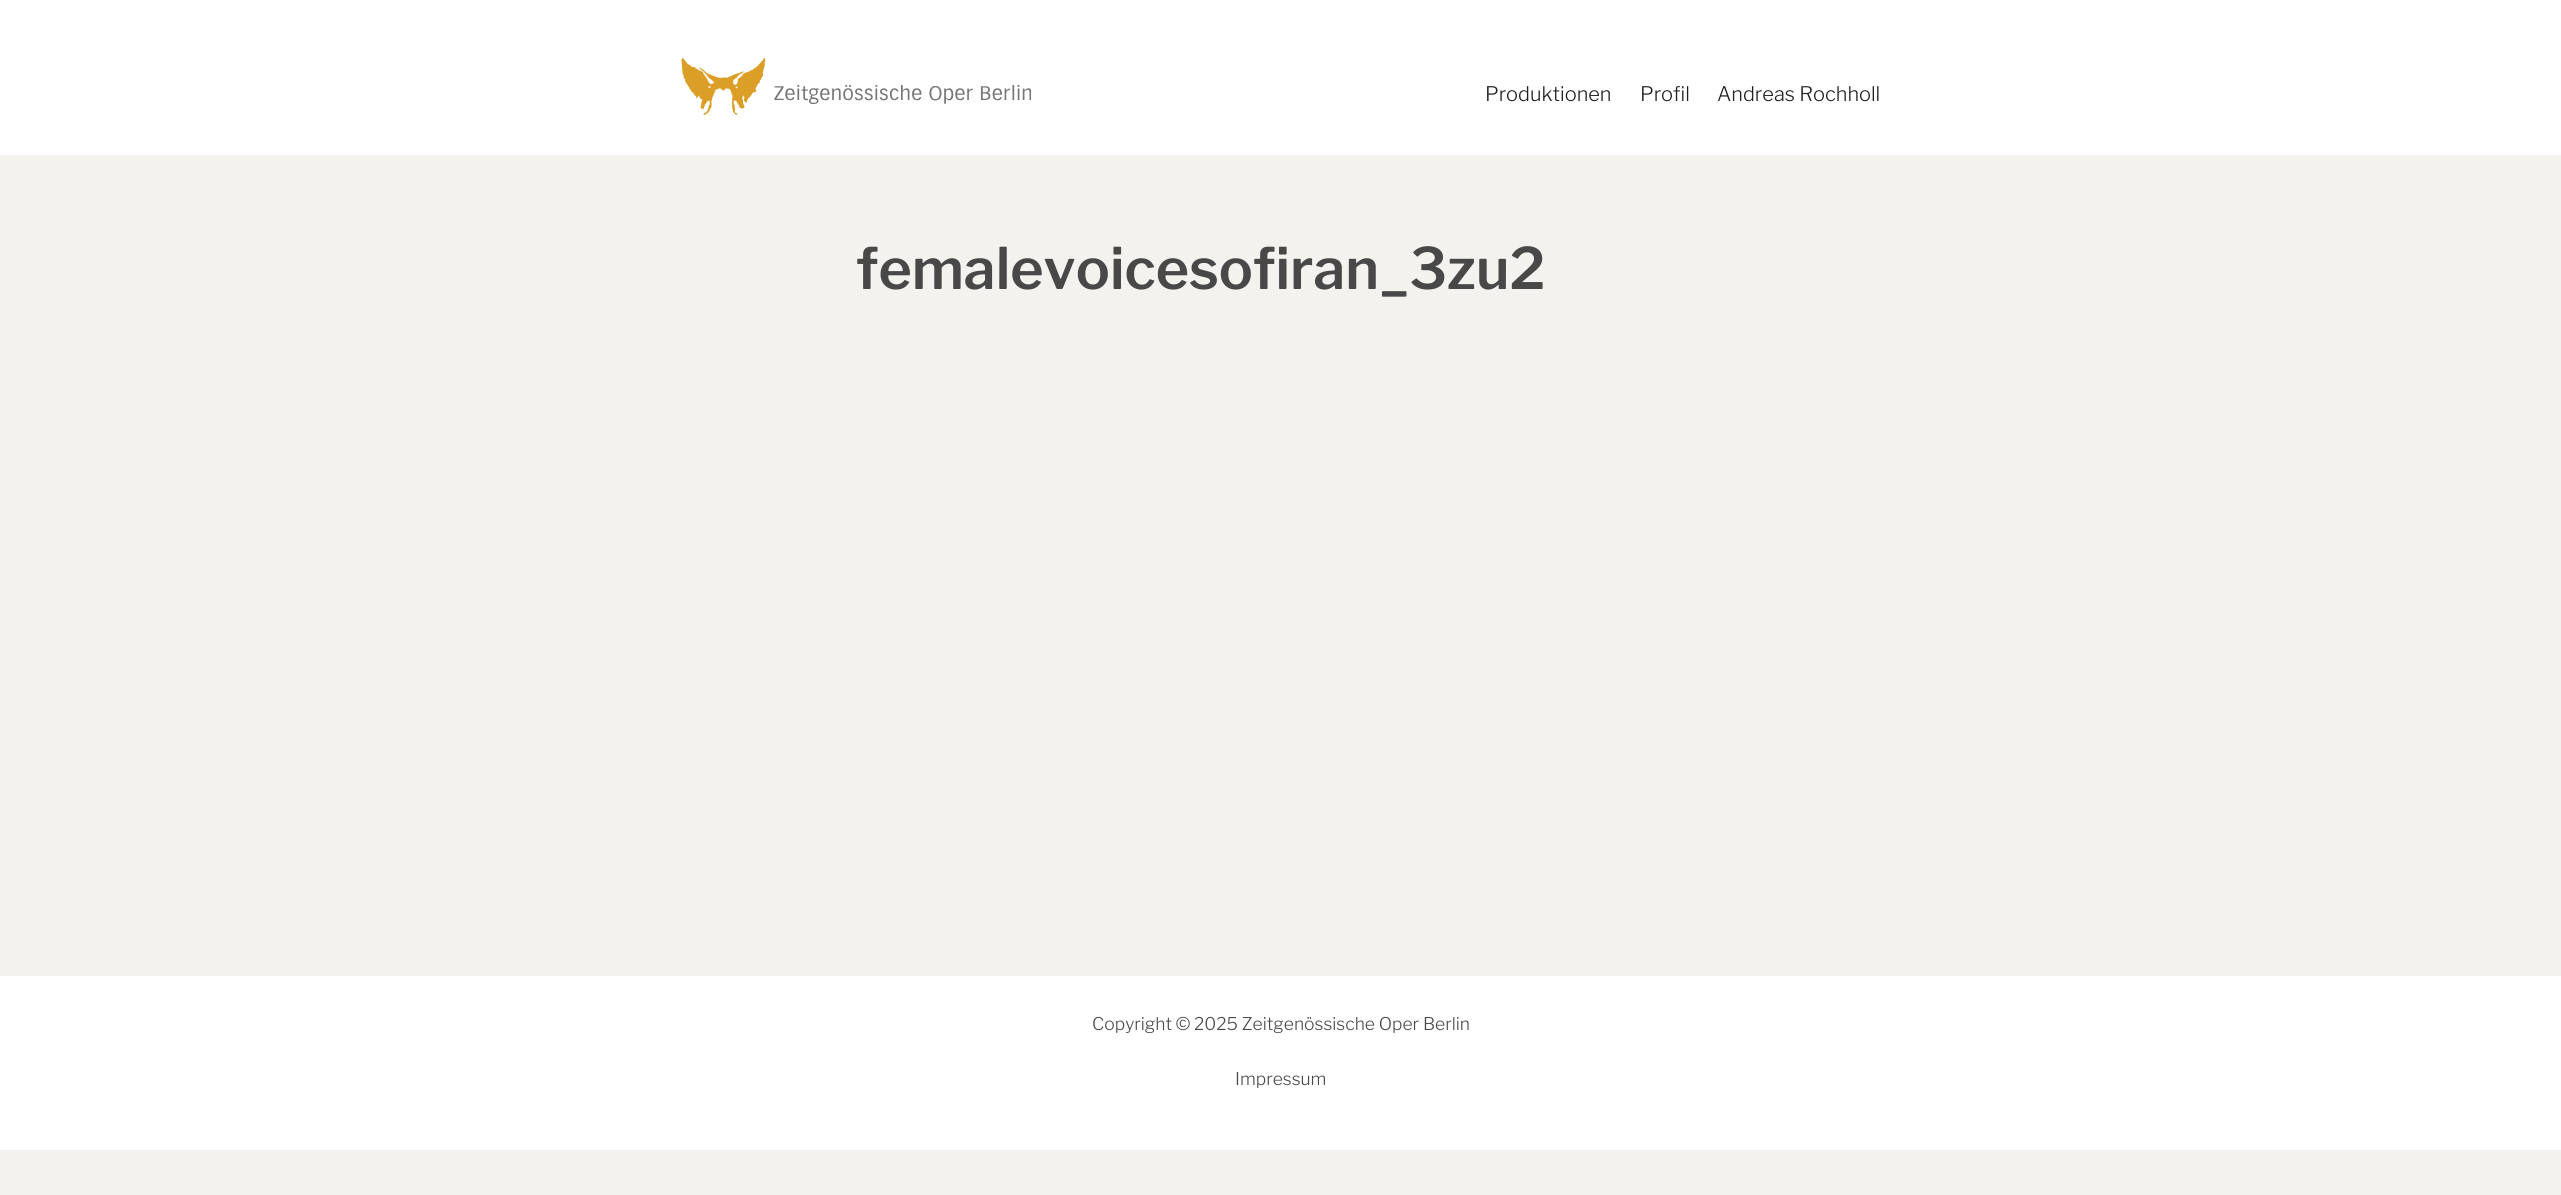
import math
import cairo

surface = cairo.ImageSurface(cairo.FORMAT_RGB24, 2561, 1195)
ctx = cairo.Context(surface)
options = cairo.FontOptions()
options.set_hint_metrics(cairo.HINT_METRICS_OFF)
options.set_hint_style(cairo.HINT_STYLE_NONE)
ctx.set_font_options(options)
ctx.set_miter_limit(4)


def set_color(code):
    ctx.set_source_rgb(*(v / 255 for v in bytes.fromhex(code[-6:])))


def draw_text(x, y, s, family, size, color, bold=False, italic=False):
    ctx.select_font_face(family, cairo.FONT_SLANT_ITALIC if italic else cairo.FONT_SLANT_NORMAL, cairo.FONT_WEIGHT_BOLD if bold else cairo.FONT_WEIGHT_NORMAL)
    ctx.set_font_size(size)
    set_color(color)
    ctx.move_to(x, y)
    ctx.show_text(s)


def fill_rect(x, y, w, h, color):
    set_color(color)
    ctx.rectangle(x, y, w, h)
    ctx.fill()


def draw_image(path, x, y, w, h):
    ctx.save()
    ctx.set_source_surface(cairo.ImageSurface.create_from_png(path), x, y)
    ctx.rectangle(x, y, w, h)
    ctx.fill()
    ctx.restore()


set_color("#f4f2ef")
ctx.paint()
fill_rect(0, 0, 2561, 155, "#ffffff")
draw_image("assets/img1.png", 681, 58, 350, 57)
draw_text(1485, 101, "Produktionen", "Libre Franklin Light", 20, "#1f1f1f")
draw_text(1640, 101, "Profil", "Libre Franklin Light", 20, "#1f1f1f")
draw_text(1717, 101, "Andreas Rochholl", "Libre Franklin Light", 20, "#1f1f1f")
draw_text(856, 289, "femalevoicesofiran_3zu2", "Libre Franklin SemiBold", 57, "#484848")
fill_rect(0, 976, 2561, 174, "#ffffff")
draw_text(1092, 1030, "Copyright © 2025 Zeitgenössische Oper Berlin", "Libre Franklin Light", 17.5, "#484848")
draw_text(1235, 1085, "Impressum", "Libre Franklin Light", 17.5, "#484848")
surface.write_to_png("output.png")
